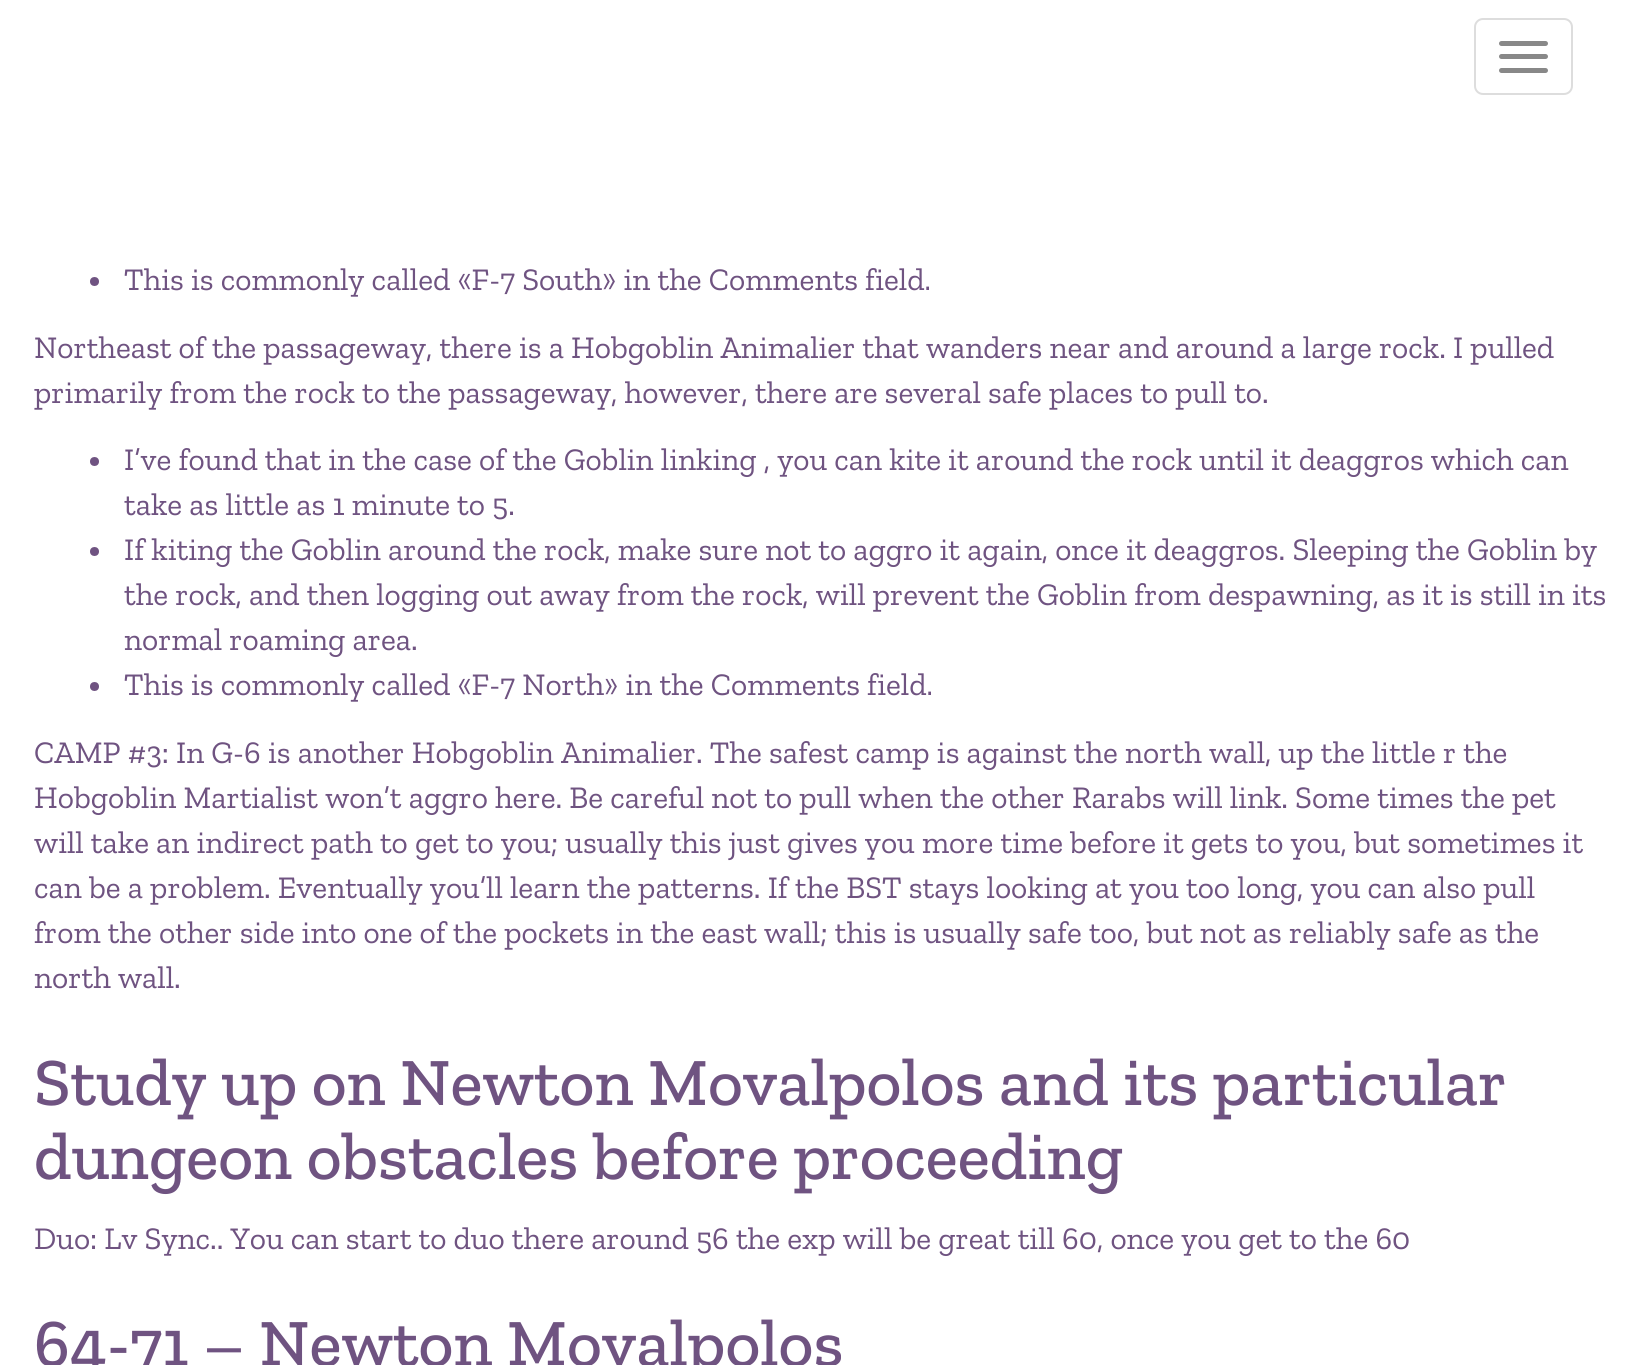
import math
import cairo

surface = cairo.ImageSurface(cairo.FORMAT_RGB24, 1639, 1365)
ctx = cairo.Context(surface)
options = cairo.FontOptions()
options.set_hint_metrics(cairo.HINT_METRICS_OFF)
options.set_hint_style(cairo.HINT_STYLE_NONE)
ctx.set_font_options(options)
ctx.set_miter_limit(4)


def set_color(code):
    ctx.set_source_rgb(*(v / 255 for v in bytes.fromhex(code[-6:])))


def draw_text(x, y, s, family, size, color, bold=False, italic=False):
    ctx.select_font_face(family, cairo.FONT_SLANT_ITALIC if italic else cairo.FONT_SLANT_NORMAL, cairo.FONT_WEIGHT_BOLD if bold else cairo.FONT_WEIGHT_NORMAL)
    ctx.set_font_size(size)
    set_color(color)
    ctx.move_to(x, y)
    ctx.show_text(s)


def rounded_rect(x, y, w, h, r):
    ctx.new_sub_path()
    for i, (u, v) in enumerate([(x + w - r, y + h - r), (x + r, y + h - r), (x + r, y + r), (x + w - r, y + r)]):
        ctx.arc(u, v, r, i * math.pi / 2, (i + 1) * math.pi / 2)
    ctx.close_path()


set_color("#ffffff")
ctx.paint()
rounded_rect(1475, 19, 97, 75, 8)
set_color("#dddddd")
ctx.stroke()
set_color("#888888")
rounded_rect(1499, 41, 49, 5, 2.5)
ctx.fill()
rounded_rect(1499, 54, 49, 5, 2.5)
ctx.fill()
rounded_rect(1499, 68, 49, 5, 2.5)
ctx.fill()
set_color("#6f5381")
ctx.arc(94.5, 281.5, 4.5, 0, 2 * math.pi)
ctx.fill()
draw_text(124, 290, "This is commonly called «F-7 South» in the Comments field.", "Zilla Slab", 31.5, "#6f5381")
draw_text(34, 358, "Northeast of the passageway, there is a Hobgoblin Animalier that wanders near and around a large rock. I pulled", "Zilla Slab", 31.5, "#6f5381")
draw_text(34, 403, "primarily from the rock to the passageway, however, there are several safe places to pull to.", "Zilla Slab", 31.5, "#6f5381")
ctx.new_path()
ctx.arc(94.5, 461.5, 4.5, 0, 2 * math.pi)
ctx.fill()
draw_text(124, 470, "I’ve found that in the case of the Goblin linking , you can kite it around the rock until it deaggros which can", "Zilla Slab", 31.5, "#6f5381")
draw_text(124, 515, "take as little as 1 minute to 5.", "Zilla Slab", 31.5, "#6f5381")
ctx.new_path()
ctx.arc(94.5, 551.5, 4.5, 0, 2 * math.pi)
ctx.fill()
draw_text(124, 560, "If kiting the Goblin around the rock, make sure not to aggro it again, once it deaggros. Sleeping the Goblin by", "Zilla Slab", 31.5, "#6f5381")
draw_text(124, 605, "the rock, and then logging out away from the rock, will prevent the Goblin from despawning, as it is still in its", "Zilla Slab", 31.5, "#6f5381")
draw_text(124, 650, "normal roaming area.", "Zilla Slab", 31.5, "#6f5381")
ctx.new_path()
ctx.arc(94.5, 686.5, 4.5, 0, 2 * math.pi)
ctx.fill()
draw_text(124, 695, "This is commonly called «F-7 North» in the Comments field.", "Zilla Slab", 31.5, "#6f5381")
draw_text(34, 763, "CAMP #3: In G-6 is another Hobgoblin Animalier. The safest camp is against the north wall, up the little r the", "Zilla Slab", 31.5, "#6f5381")
draw_text(34, 808, "Hobgoblin Martialist won’t aggro here. Be careful not to pull when the other Rarabs will link. Some times the pet", "Zilla Slab", 31.5, "#6f5381")
draw_text(34, 853, "will take an indirect path to get to you; usually this just gives you more time before it gets to you, but sometimes it", "Zilla Slab", 31.5, "#6f5381")
draw_text(34, 898, "can be a problem. Eventually you’ll learn the patterns. If the BST stays looking at you too long, you can also pull", "Zilla Slab", 31.5, "#6f5381")
draw_text(34, 943, "from the other side into one of the pockets in the east wall; this is usually safe too, but not as reliably safe as the", "Zilla Slab", 31.5, "#6f5381")
draw_text(34, 988, "north wall.", "Zilla Slab", 31.5, "#6f5381")
draw_text(34, 1105, "Study up on Newton Movalpolos and its particular", "Zilla Slab Medium", 67.5, "#6f5381")
draw_text(34, 1179, "dungeon obstacles before proceeding", "Zilla Slab Medium", 67.5, "#6f5381")
draw_text(34, 1249, "Duo: Lv Sync.. You can start to duo there around 56 the exp will be great till 60, once you get to the 60", "Zilla Slab", 31.5, "#6f5381")
draw_text(34, 1366, "64-71 – Newton Movalpolos", "Zilla Slab Medium", 67.5, "#6f5381")
surface.write_to_png("output.png")
